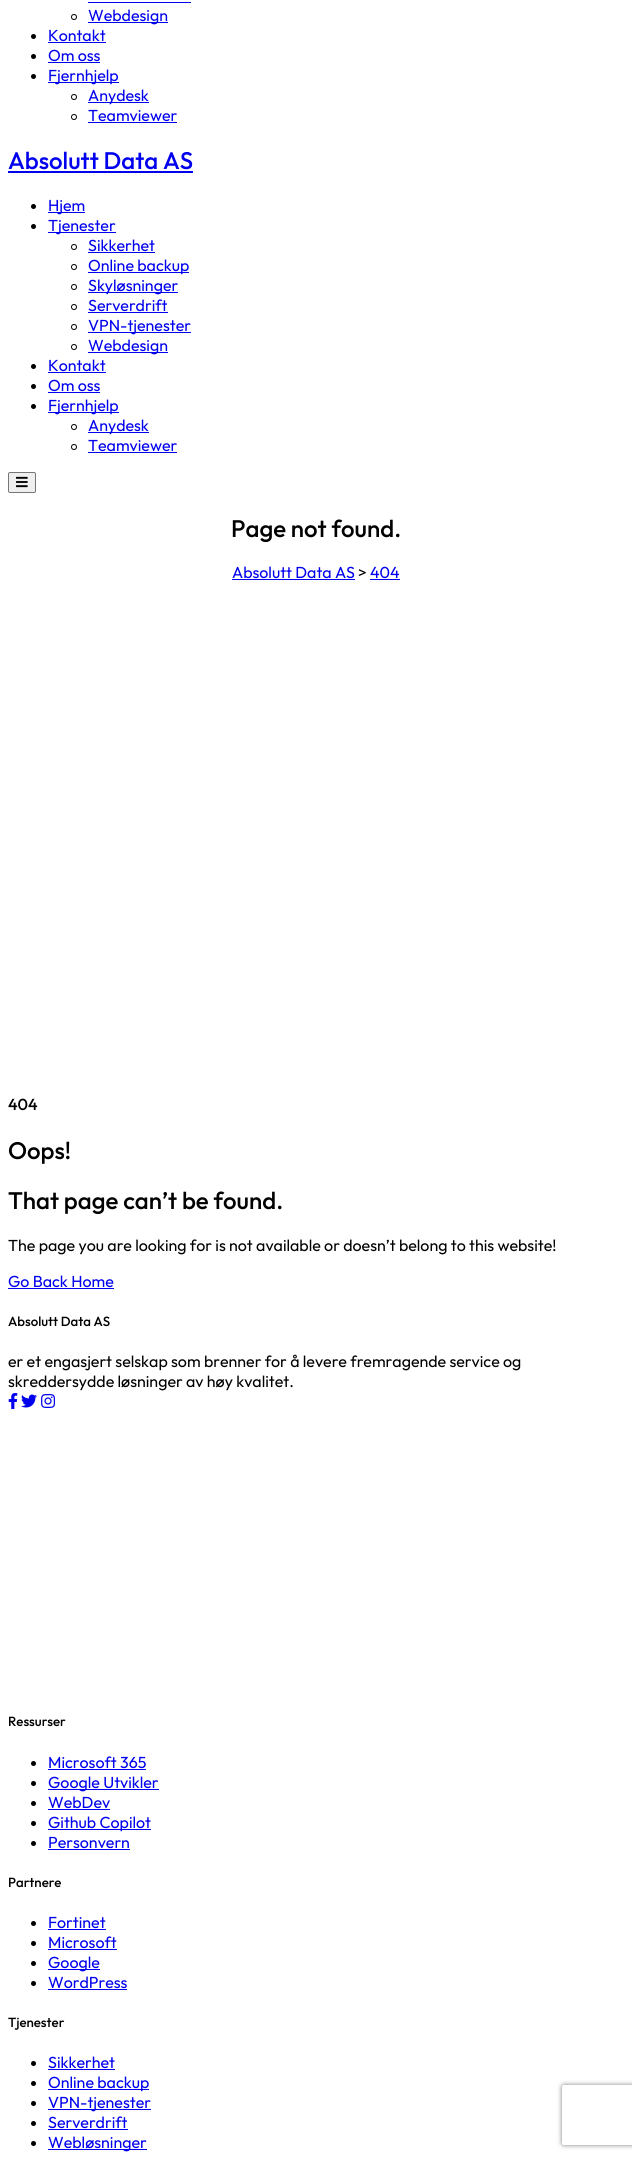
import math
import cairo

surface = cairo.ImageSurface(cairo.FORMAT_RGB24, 632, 2159)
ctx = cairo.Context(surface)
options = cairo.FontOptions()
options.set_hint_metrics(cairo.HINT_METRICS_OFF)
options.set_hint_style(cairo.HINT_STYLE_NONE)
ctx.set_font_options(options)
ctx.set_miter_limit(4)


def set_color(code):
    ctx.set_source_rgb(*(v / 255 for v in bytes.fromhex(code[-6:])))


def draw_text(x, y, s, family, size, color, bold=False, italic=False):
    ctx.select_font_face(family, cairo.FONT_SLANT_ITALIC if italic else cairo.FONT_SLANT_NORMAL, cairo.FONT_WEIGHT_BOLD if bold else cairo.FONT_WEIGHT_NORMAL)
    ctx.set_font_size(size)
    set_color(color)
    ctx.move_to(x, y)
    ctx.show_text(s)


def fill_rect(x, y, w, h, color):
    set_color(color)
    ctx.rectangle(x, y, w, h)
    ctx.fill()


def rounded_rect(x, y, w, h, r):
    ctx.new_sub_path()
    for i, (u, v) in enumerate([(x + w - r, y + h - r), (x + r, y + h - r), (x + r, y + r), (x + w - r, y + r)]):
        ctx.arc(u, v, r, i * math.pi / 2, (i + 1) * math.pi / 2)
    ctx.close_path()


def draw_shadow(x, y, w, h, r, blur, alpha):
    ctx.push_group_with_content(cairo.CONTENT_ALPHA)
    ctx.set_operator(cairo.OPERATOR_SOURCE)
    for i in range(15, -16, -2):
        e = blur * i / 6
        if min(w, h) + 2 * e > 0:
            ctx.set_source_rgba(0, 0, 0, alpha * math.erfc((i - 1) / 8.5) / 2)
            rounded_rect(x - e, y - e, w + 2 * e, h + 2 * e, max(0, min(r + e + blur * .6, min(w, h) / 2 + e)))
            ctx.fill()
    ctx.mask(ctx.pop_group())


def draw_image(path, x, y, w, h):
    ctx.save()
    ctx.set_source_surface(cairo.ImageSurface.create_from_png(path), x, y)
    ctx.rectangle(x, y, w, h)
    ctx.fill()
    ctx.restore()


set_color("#ffffff")
ctx.paint()
fill_rect(88, 2, 103, 1, "#0000ee")
ctx.arc(74, 17, 2.5, 0, 2 * math.pi)
set_color("#000000")
ctx.set_line_width(1)
ctx.stroke()
fill_rect(88, 22, 80, 1, "#0000ee")
draw_text(88, 21, "Webdesign", "Outfit", 16, "#0000ee")
set_color("#000000")
ctx.new_path()
ctx.arc(33.5, 36.5, 2.5, 0, 2 * math.pi)
ctx.fill()
draw_text(48, 41, "Kontakt", "Outfit", 16, "#0000ee")
fill_rect(48, 42, 58, 1, "#0000ee")
set_color("#000000")
ctx.new_path()
ctx.arc(33.5, 56.5, 2.5, 0, 2 * math.pi)
ctx.fill()
draw_text(48, 61, "Om oss", "Outfit", 16, "#0000ee")
fill_rect(48, 62, 52, 1, "#0000ee")
set_color("#000000")
ctx.new_path()
ctx.arc(33.5, 76.5, 2.5, 0, 2 * math.pi)
ctx.fill()
fill_rect(48, 82, 71, 1, "#0000ee")
draw_text(48, 81, "Fjernhjelp", "Outfit", 16, "#0000ee")
ctx.new_path()
ctx.arc(74, 97, 2.5, 0, 2 * math.pi)
set_color("#000000")
ctx.stroke()
fill_rect(88, 102, 61, 1, "#0000ee")
draw_text(88, 101, "Anydesk", "Outfit", 16, "#0000ee")
ctx.new_path()
ctx.arc(74, 117, 2.5, 0, 2 * math.pi)
set_color("#000000")
ctx.stroke()
draw_text(88, 121, "Teamviewer", "Outfit", 16, "#0000ee")
fill_rect(88, 122, 89, 1, "#0000ee")
draw_text(8, 169, "Absolutt Data AS", "Outfit Medium", 24, "#0000ee")
fill_rect(8, 171, 185, 2, "#0000ee")
set_color("#000000")
ctx.new_path()
ctx.arc(33.5, 206.5, 2.5, 0, 2 * math.pi)
ctx.fill()
fill_rect(48, 212, 37, 1, "#0000ee")
draw_text(48, 211, "Hjem", "Outfit", 16, "#0000ee")
set_color("#000000")
ctx.new_path()
ctx.arc(33.5, 226.5, 2.5, 0, 2 * math.pi)
ctx.fill()
fill_rect(48, 232, 68, 1, "#0000ee")
draw_text(48, 231, "Tjenester", "Outfit", 16, "#0000ee")
ctx.new_path()
ctx.arc(74, 247, 2.5, 0, 2 * math.pi)
set_color("#000000")
ctx.stroke()
draw_text(88, 251, "Sikkerhet", "Outfit", 16, "#0000ee")
fill_rect(88, 252, 67, 1, "#0000ee")
ctx.new_path()
ctx.arc(74, 267, 2.5, 0, 2 * math.pi)
set_color("#000000")
ctx.stroke()
fill_rect(88, 272, 101, 1, "#0000ee")
draw_text(88, 271, "Online backup", "Outfit", 16, "#0000ee")
ctx.new_path()
ctx.arc(74, 287, 2.5, 0, 2 * math.pi)
set_color("#000000")
ctx.stroke()
fill_rect(88, 292, 90, 1, "#0000ee")
draw_text(88, 291, "Skyløsninger", "Outfit", 16, "#0000ee")
ctx.new_path()
ctx.arc(74, 307, 2.5, 0, 2 * math.pi)
set_color("#000000")
ctx.stroke()
draw_text(88, 311, "Serverdrift", "Outfit", 16, "#0000ee")
fill_rect(88, 312, 80, 1, "#0000ee")
ctx.new_path()
ctx.arc(74, 327, 2.5, 0, 2 * math.pi)
set_color("#000000")
ctx.stroke()
fill_rect(88, 332, 103, 1, "#0000ee")
draw_text(88, 331, "VPN-tjenester", "Outfit", 16, "#0000ee")
ctx.new_path()
ctx.arc(74, 347, 2.5, 0, 2 * math.pi)
set_color("#000000")
ctx.stroke()
fill_rect(88, 352, 80, 1, "#0000ee")
draw_text(88, 351, "Webdesign", "Outfit", 16, "#0000ee")
set_color("#000000")
ctx.new_path()
ctx.arc(33.5, 366.5, 2.5, 0, 2 * math.pi)
ctx.fill()
draw_text(48, 371, "Kontakt", "Outfit", 16, "#0000ee")
fill_rect(48, 372, 58, 1, "#0000ee")
set_color("#000000")
ctx.new_path()
ctx.arc(33.5, 386.5, 2.5, 0, 2 * math.pi)
ctx.fill()
draw_text(48, 391, "Om oss", "Outfit", 16, "#0000ee")
fill_rect(48, 392, 52, 1, "#0000ee")
set_color("#000000")
ctx.new_path()
ctx.arc(33.5, 406.5, 2.5, 0, 2 * math.pi)
ctx.fill()
fill_rect(48, 412, 71, 1, "#0000ee")
draw_text(48, 411, "Fjernhjelp", "Outfit", 16, "#0000ee")
ctx.new_path()
ctx.arc(74, 427, 2.5, 0, 2 * math.pi)
set_color("#000000")
ctx.stroke()
fill_rect(88, 432, 61, 1, "#0000ee")
draw_text(88, 431, "Anydesk", "Outfit", 16, "#0000ee")
ctx.new_path()
ctx.arc(74, 447, 2.5, 0, 2 * math.pi)
set_color("#000000")
ctx.stroke()
draw_text(88, 451, "Teamviewer", "Outfit", 16, "#0000ee")
fill_rect(88, 452, 89, 1, "#0000ee")
set_color("#efefef")
rounded_rect(8.5, 472.5, 27, 20, 1.5)
ctx.fill_preserve()
set_color("#767676")
ctx.stroke()
draw_image("assets/img1.png", 16, 476, 12, 12)
draw_text(231, 537, "Page not found.", "Outfit Medium", 24, "#000000")
draw_text(232, 578, "Absolutt Data AS", "Outfit", 16, "#0000ee")
fill_rect(232, 579, 123, 1, "#0000ee")
draw_text(358, 578, ">", "Outfit", 16, "#000000")
draw_text(370, 578, "404", "Outfit", 16, "#0000ee")
fill_rect(370, 579, 30, 1, "#0000ee")
draw_text(8, 1110, "404", "Outfit Medium", 16, "#000000")
draw_text(8, 1159, "Oops!", "Outfit Medium", 24, "#000000")
draw_text(8, 1209, "That page can’t be found.", "Outfit Medium", 24, "#000000")
draw_text(8, 1251, "The page you are looking for is not available or doesn’t belong to this website!", "Outfit", 16, "#000000")
draw_text(8, 1287, "Go Back Home", "Outfit", 16, "#0000ee")
fill_rect(8, 1288, 106, 1, "#0000ee")
draw_text(8, 1326, "Absolutt Data AS", "Outfit Medium", 13.25, "#000000")
draw_text(8, 1367, "er et engasjert selskap som brenner for å levere fremragende service og", "Outfit", 16, "#000000")
draw_text(8, 1387, "skreddersydde løsninger av høy kvalitet.", "Outfit", 16, "#000000")
draw_image("assets/img2.png", 8, 1393, 10, 16)
draw_image("assets/img3.png", 21, 1394, 16, 14)
draw_image("assets/img4.png", 41, 1394, 15, 14)
draw_text(8, 1726, "Ressurser", "Outfit Medium", 13.25, "#000000")
ctx.new_path()
ctx.arc(33.5, 1763.5, 2.5, 0, 2 * math.pi)
ctx.fill()
draw_text(48, 1768, "Microsoft 365", "Outfit", 16, "#0000ee")
fill_rect(48, 1769, 98, 1, "#0000ee")
set_color("#000000")
ctx.new_path()
ctx.arc(33.5, 1783.5, 2.5, 0, 2 * math.pi)
ctx.fill()
fill_rect(48, 1789, 111, 1, "#0000ee")
draw_text(48, 1788, "Google Utvikler", "Outfit", 16, "#0000ee")
set_color("#000000")
ctx.new_path()
ctx.arc(33.5, 1803.5, 2.5, 0, 2 * math.pi)
ctx.fill()
draw_text(48, 1808, "WebDev", "Outfit", 16, "#0000ee")
fill_rect(48, 1809, 62, 1, "#0000ee")
set_color("#000000")
ctx.new_path()
ctx.arc(33.5, 1823.5, 2.5, 0, 2 * math.pi)
ctx.fill()
fill_rect(48, 1829, 103, 1, "#0000ee")
draw_text(48, 1828, "Github Copilot", "Outfit", 16, "#0000ee")
set_color("#000000")
ctx.new_path()
ctx.arc(33.5, 1843.5, 2.5, 0, 2 * math.pi)
ctx.fill()
draw_text(48, 1848, "Personvern", "Outfit", 16, "#0000ee")
fill_rect(48, 1849, 82, 1, "#0000ee")
draw_text(8, 1887, "Partnere", "Outfit Medium", 13.25, "#000000")
ctx.new_path()
ctx.arc(33.5, 1923.5, 2.5, 0, 2 * math.pi)
ctx.fill()
draw_text(48, 1928, "Fortinet", "Outfit", 16, "#0000ee")
fill_rect(48, 1929, 58, 1, "#0000ee")
set_color("#000000")
ctx.new_path()
ctx.arc(33.5, 1943.5, 2.5, 0, 2 * math.pi)
ctx.fill()
draw_text(48, 1948, "Microsoft", "Outfit", 16, "#0000ee")
fill_rect(48, 1949, 69, 1, "#0000ee")
set_color("#000000")
ctx.new_path()
ctx.arc(33.5, 1963.5, 2.5, 0, 2 * math.pi)
ctx.fill()
fill_rect(48, 1969, 52, 1, "#0000ee")
draw_text(48, 1968, "Google", "Outfit", 16, "#0000ee")
set_color("#000000")
ctx.new_path()
ctx.arc(33.5, 1983.5, 2.5, 0, 2 * math.pi)
ctx.fill()
draw_text(48, 1988, "WordPress", "Outfit", 16, "#0000ee")
fill_rect(48, 1989, 79, 1, "#0000ee")
draw_text(8, 2027, "Tjenester", "Outfit Medium", 13.25, "#000000")
ctx.new_path()
ctx.arc(33.5, 2063.5, 2.5, 0, 2 * math.pi)
ctx.fill()
draw_text(48, 2068, "Sikkerhet", "Outfit", 16, "#0000ee")
fill_rect(48, 2069, 67, 1, "#0000ee")
set_color("#000000")
ctx.new_path()
ctx.arc(33.5, 2083.5, 2.5, 0, 2 * math.pi)
ctx.fill()
fill_rect(48, 2089, 101, 1, "#0000ee")
draw_text(48, 2088, "Online backup", "Outfit", 16, "#0000ee")
set_color("#000000")
ctx.new_path()
ctx.arc(33.5, 2103.5, 2.5, 0, 2 * math.pi)
ctx.fill()
fill_rect(48, 2109, 103, 1, "#0000ee")
draw_text(48, 2108, "VPN-tjenester", "Outfit", 16, "#0000ee")
set_color("#000000")
ctx.new_path()
ctx.arc(33.5, 2123.5, 2.5, 0, 2 * math.pi)
ctx.fill()
draw_text(48, 2128, "Serverdrift", "Outfit", 16, "#0000ee")
fill_rect(48, 2129, 80, 1, "#0000ee")
set_color("#000000")
ctx.new_path()
ctx.arc(33.5, 2143.5, 2.5, 0, 2 * math.pi)
ctx.fill()
fill_rect(48, 2149, 99, 1, "#0000ee")
draw_text(48, 2148, "Webløsninger", "Outfit", 16, "#0000ee")
ctx.save()
ctx.set_fill_rule(cairo.FILL_RULE_EVEN_ODD)
ctx.new_path()
ctx.move_to(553, 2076)
ctx.line_to(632, 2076)
ctx.line_to(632, 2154)
ctx.line_to(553, 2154)
ctx.close_path()
ctx.move_to(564, 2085)
ctx.line_to(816, 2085)
ctx.curve_to(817, 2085, 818, 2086, 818, 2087)
ctx.line_to(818, 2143)
ctx.curve_to(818, 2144, 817, 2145, 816, 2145)
ctx.line_to(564, 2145)
ctx.curve_to(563, 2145, 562, 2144, 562, 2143)
ctx.line_to(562, 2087)
ctx.curve_to(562, 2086, 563, 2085, 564, 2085)
ctx.close_path()
ctx.clip()
set_color("#808080")
draw_shadow(562, 2085, 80, 60, 2, 2.5, 1)
ctx.restore()
surface.write_to_png("output.png")
